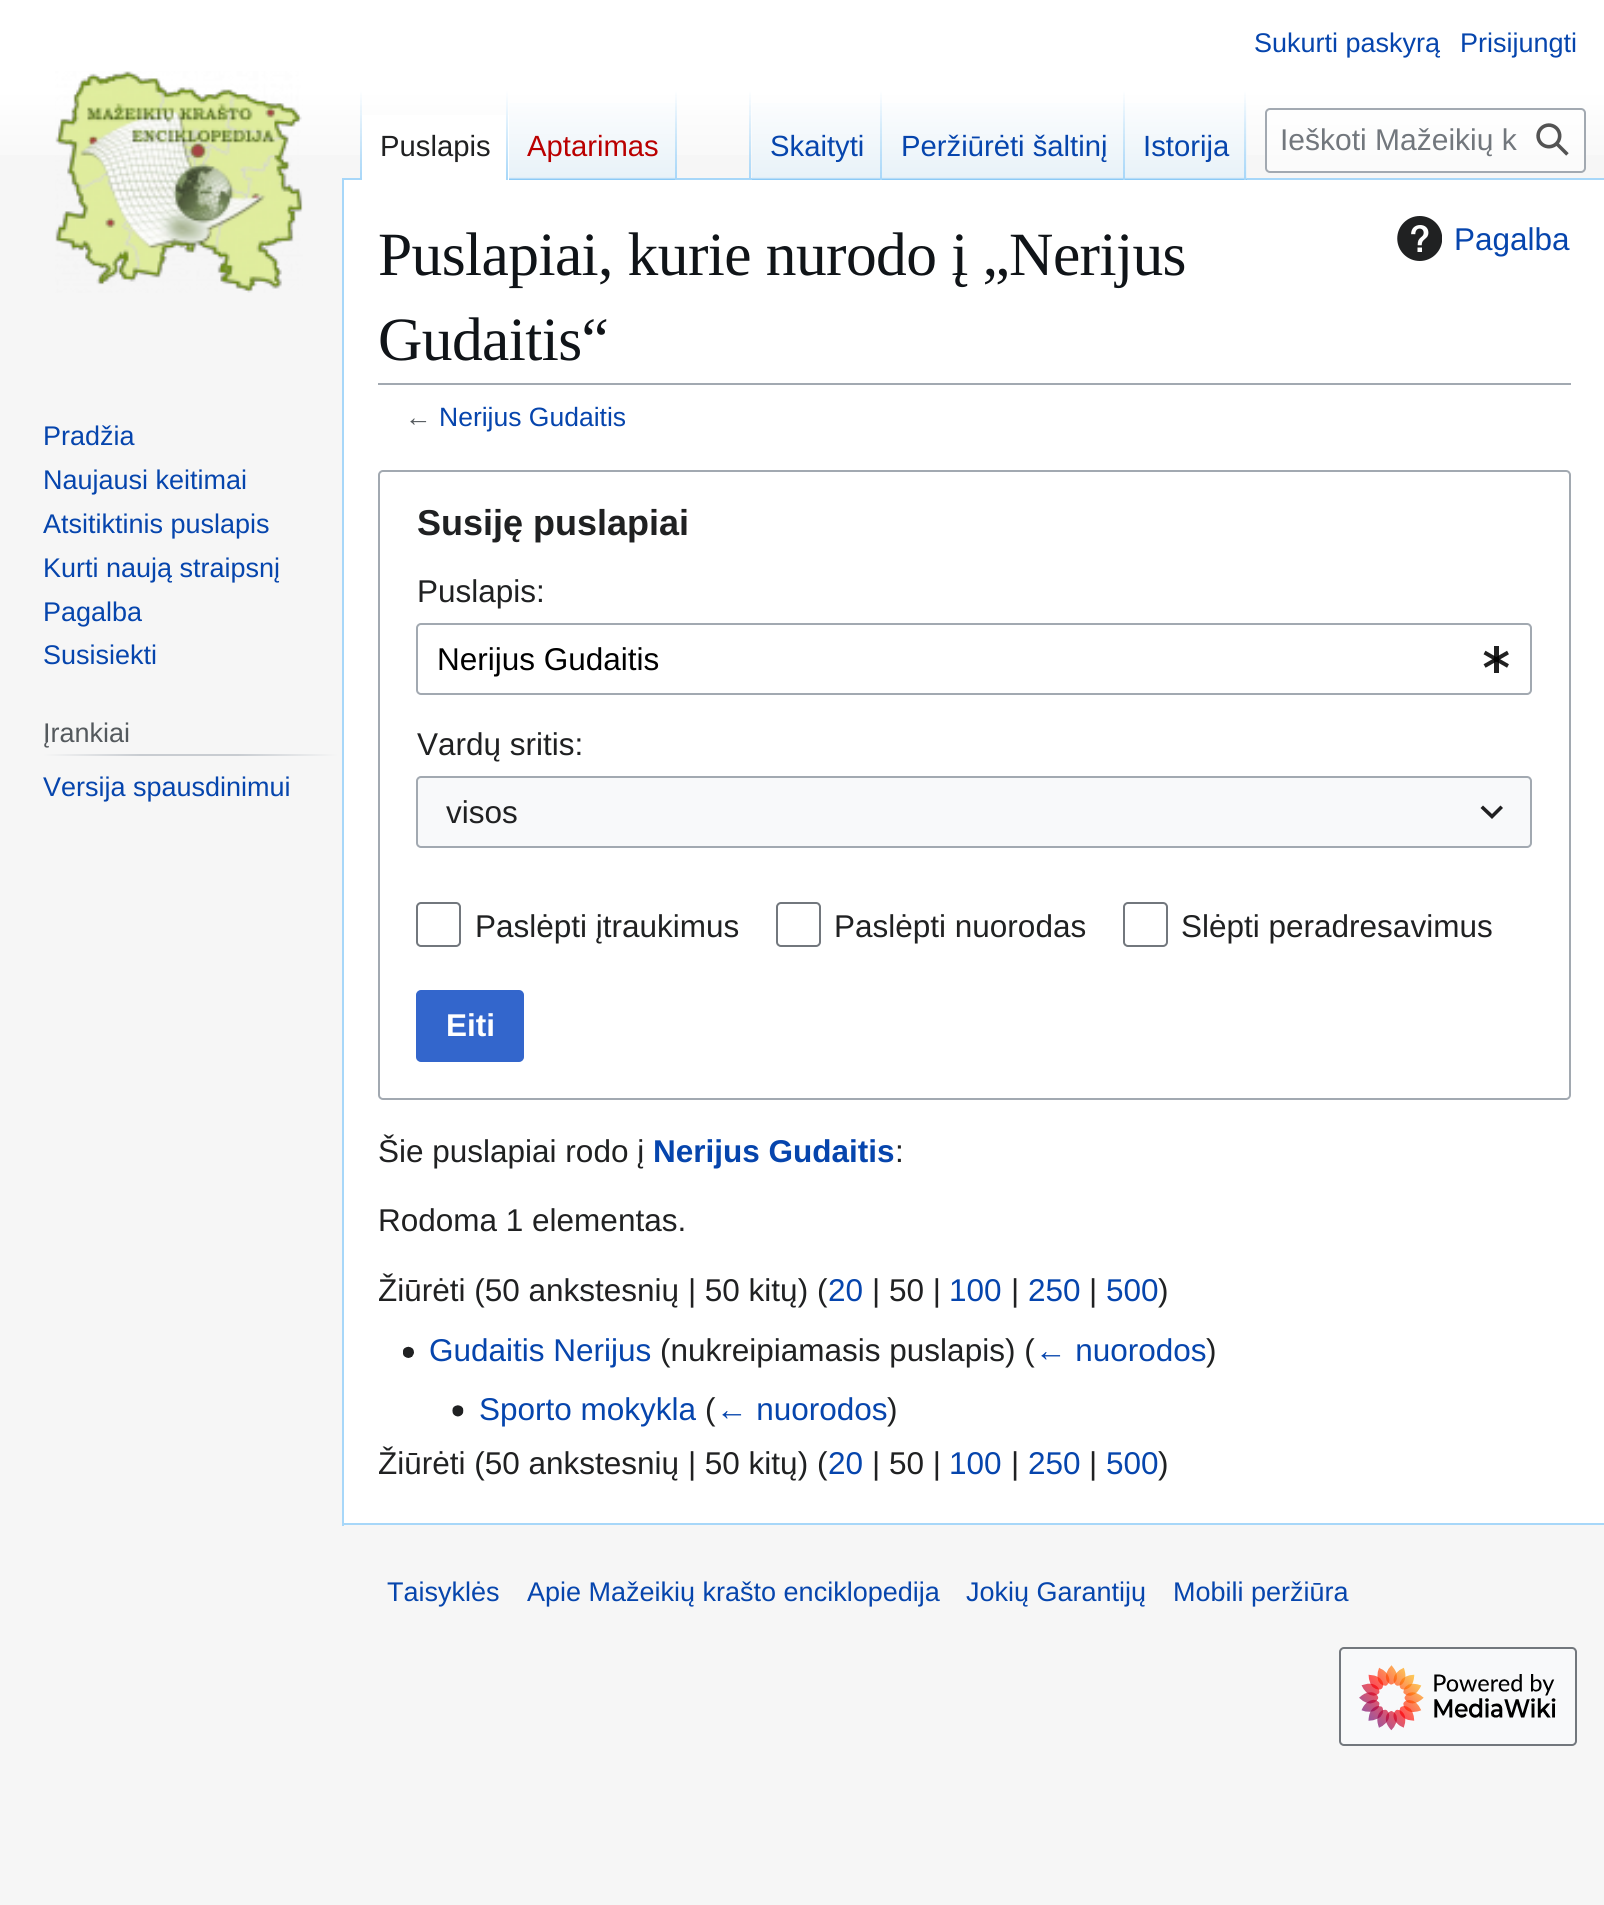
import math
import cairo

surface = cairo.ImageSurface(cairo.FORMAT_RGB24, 1604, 1905)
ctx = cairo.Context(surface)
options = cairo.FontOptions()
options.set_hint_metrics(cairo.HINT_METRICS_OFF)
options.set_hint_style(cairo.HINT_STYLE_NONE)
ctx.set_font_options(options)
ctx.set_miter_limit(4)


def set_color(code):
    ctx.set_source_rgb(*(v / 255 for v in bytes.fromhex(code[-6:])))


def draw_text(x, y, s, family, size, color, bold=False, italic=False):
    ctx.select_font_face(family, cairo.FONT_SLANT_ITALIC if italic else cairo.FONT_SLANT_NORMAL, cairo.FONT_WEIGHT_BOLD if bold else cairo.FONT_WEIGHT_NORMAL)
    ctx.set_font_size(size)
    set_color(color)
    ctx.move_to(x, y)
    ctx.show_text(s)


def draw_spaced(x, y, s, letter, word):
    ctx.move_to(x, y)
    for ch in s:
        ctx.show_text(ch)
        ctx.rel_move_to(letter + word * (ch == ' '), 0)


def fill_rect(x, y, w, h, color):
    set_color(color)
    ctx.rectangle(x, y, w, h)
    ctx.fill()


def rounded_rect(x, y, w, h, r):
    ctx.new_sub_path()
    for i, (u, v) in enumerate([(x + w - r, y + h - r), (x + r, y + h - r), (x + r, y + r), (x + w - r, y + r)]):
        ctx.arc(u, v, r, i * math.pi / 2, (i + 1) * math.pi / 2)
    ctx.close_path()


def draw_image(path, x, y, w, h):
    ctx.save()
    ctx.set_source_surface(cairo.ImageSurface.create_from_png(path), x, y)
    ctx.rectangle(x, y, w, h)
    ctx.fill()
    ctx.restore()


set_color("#f6f6f6")
ctx.paint()
gradient = cairo.LinearGradient(802, 0, 802, 180)
gradient.add_color_stop_rgba(0.5, 1, 1, 1, 1)
gradient.add_color_stop_rgba(1, 0.965, 0.965, 0.965, 1)
ctx.set_source(gradient)
ctx.rectangle(0, 0, 1604, 155)
ctx.fill()
draw_text(1254, 52, "Sukurti paskyrą", "Liberation Sans", 27, "#0645ad")
draw_text(1460, 52, "Prisijungti", "Liberation Sans", 27, "#0645ad")
fill_rect(342, 178, 1262, 2, "#a7d7f9")
gradient = cairo.LinearGradient(361, 90, 361, 180)
gradient.add_color_stop_rgba(0, 0.655, 0.843, 0.976, 0)
gradient.add_color_stop_rgba(1, 0.655, 0.843, 0.976, 1)
ctx.set_source(gradient)
ctx.rectangle(360, 90, 2, 90)
ctx.fill()
fill_rect(362, 115, 147, 65, "#ffffff")
gradient = cairo.LinearGradient(507, 90, 507, 180)
gradient.add_color_stop_rgba(0, 1, 1, 1, 1)
gradient.add_color_stop_rgba(1, 0.655, 0.843, 0.976, 1)
ctx.set_source(gradient)
ctx.rectangle(506, 90, 2, 90)
ctx.fill()
draw_text(380, 156, "Puslapis", "Liberation Sans", 29.25, "#202122")
gradient = cairo.LinearGradient(593, 180, 593, 90)
gradient.add_color_stop_rgba(0, 0.467, 0.757, 0.965, 1)
gradient.add_color_stop_rgba(0.03, 0.91, 0.949, 0.973, 1)
gradient.add_color_stop_rgba(1, 1, 1, 1, 1)
ctx.set_source(gradient)
ctx.rectangle(509, 103, 168, 77)
ctx.fill()
gradient = cairo.LinearGradient(676, 90, 676, 180)
gradient.add_color_stop_rgba(0, 0.655, 0.843, 0.976, 0)
gradient.add_color_stop_rgba(1, 0.655, 0.843, 0.976, 1)
ctx.set_source(gradient)
ctx.rectangle(675, 90, 2, 90)
ctx.fill()
draw_text(527, 156, "Aptarimas", "Liberation Sans", 29.25, "#ba0000")
gradient = cairo.LinearGradient(750, 90, 750, 180)
gradient.add_color_stop_rgba(0, 0.655, 0.843, 0.976, 0)
gradient.add_color_stop_rgba(1, 0.655, 0.843, 0.976, 1)
ctx.set_source(gradient)
ctx.rectangle(749, 90, 2, 90)
ctx.fill()
gradient = cairo.LinearGradient(817, 180, 817, 90)
gradient.add_color_stop_rgba(0, 0.467, 0.757, 0.965, 1)
gradient.add_color_stop_rgba(0.03, 0.91, 0.949, 0.973, 1)
gradient.add_color_stop_rgba(1, 1, 1, 1, 1)
ctx.set_source(gradient)
ctx.rectangle(752, 103, 130, 77)
ctx.fill()
gradient = cairo.LinearGradient(881, 90, 881, 180)
gradient.add_color_stop_rgba(0, 0.655, 0.843, 0.976, 0)
gradient.add_color_stop_rgba(1, 0.655, 0.843, 0.976, 1)
ctx.set_source(gradient)
ctx.rectangle(880, 90, 2, 90)
ctx.fill()
draw_text(770, 156, "Skaityti", "Liberation Sans", 29.25, "#0645ad")
gradient = cairo.LinearGradient(1004, 180, 1004, 90)
gradient.add_color_stop_rgba(0, 0.467, 0.757, 0.965, 1)
gradient.add_color_stop_rgba(0.03, 0.91, 0.949, 0.973, 1)
gradient.add_color_stop_rgba(1, 1, 1, 1, 1)
ctx.set_source(gradient)
ctx.rectangle(882, 103, 243, 77)
ctx.fill()
gradient = cairo.LinearGradient(1124, 90, 1124, 180)
gradient.add_color_stop_rgba(0, 0.655, 0.843, 0.976, 0)
gradient.add_color_stop_rgba(1, 0.655, 0.843, 0.976, 1)
ctx.set_source(gradient)
ctx.rectangle(1123, 90, 2, 90)
ctx.fill()
draw_text(901, 156, "Peržiūrėti šaltinį", "Liberation Sans", 29.25, "#0645ad")
gradient = cairo.LinearGradient(1186, 180, 1186, 90)
gradient.add_color_stop_rgba(0, 0.467, 0.757, 0.965, 1)
gradient.add_color_stop_rgba(0.03, 0.91, 0.949, 0.973, 1)
gradient.add_color_stop_rgba(1, 1, 1, 1, 1)
ctx.set_source(gradient)
ctx.rectangle(1125, 103, 122, 77)
ctx.fill()
gradient = cairo.LinearGradient(1245, 90, 1245, 180)
gradient.add_color_stop_rgba(0, 0.655, 0.843, 0.976, 0)
gradient.add_color_stop_rgba(1, 0.655, 0.843, 0.976, 1)
ctx.set_source(gradient)
ctx.rectangle(1244, 90, 2, 90)
ctx.fill()
draw_text(1143, 156, "Istorija", "Liberation Sans", 29.25, "#0645ad")
ctx.set_source_rgba(1, 1, 1, 0.5)
rounded_rect(1266, 109, 319, 63, 4)
ctx.fill_preserve()
set_color("#a2a9b1")
ctx.stroke()
draw_text(1280, 150, "Ieškoti Mažeikių k", "Liberation Sans", 30, "#72777d")
draw_image("assets/img1.png", 1536, 123, 33, 33)
draw_image("assets/img2.png", 55, 71, 248, 222)
draw_text(43, 445, "Pradžia", "Liberation Sans", 27, "#0645ad")
draw_text(43, 489, "Naujausi keitimai", "Liberation Sans", 27, "#0645ad")
draw_text(43, 533, "Atsitiktinis puslapis", "Liberation Sans", 27, "#0645ad")
draw_text(43, 577, "Kurti naują straipsnį", "Liberation Sans", 27, "#0645ad")
draw_text(43, 621, "Pagalba", "Liberation Sans", 27, "#0645ad")
draw_text(43, 664, "Susisiekti", "Liberation Sans", 27, "#0645ad")
gradient = cairo.LinearGradient(43, 755, 338, 755)
gradient.add_color_stop_rgba(0, 0.965, 0.965, 0.965, 1)
gradient.add_color_stop_rgba(0.33, 0.784, 0.8, 0.82, 1)
gradient.add_color_stop_rgba(0.66, 0.784, 0.8, 0.82, 1)
gradient.add_color_stop_rgba(1, 0.965, 0.965, 0.965, 1)
ctx.set_source(gradient)
ctx.rectangle(43, 754, 295, 2)
ctx.fill()
draw_text(43, 742, "Įrankiai", "Liberation Sans", 27, "#54595d")
draw_text(43, 796, "Versija spausdinimui", "Liberation Sans", 27, "#0645ad")
fill_rect(344, 180, 1260, 1343, "#ffffff")
fill_rect(342, 1523, 1262, 2, "#a7d7f9")
fill_rect(342, 178, 2, 1348, "#a7d7f9")
fill_rect(378, 383, 1193, 2, "#a2a9b1")
ctx.select_font_face("Liberation Serif")
ctx.set_font_size(61.5)
set_color("#101418")
draw_spaced(378, 275, "Puslapiai, kurie nurodo į „Nerijus", -0.6, 0)
draw_spaced(378, 360, "Gudaitis“", -0.6, 0)
draw_image("assets/img3.png", 1397, 216, 45, 45)
draw_text(1454, 250, "Pagalba", "Liberation Sans", 31.5, "#0645ad")
draw_text(405, 426, "←", "Liberation Sans", 26.5, "#54595d")
draw_text(439, 426, "Nerijus Gudaitis", "Liberation Sans", 26.5, "#0645ad")
rounded_rect(379, 471, 1191, 628, 4)
set_color("#a2a9b1")
ctx.stroke()
draw_text(417, 535, "Susiję puslapiai", "Liberation Sans", 36, "#202122", bold=True)
draw_text(417, 602, "Puslapis:", "Liberation Sans", 31.5, "#202122")
rounded_rect(417, 624, 1114, 70, 4)
set_color("#a2a9b1")
ctx.stroke()
draw_text(437, 670, "Nerijus Gudaitis", "Liberation Sans", 31.5, "#000000")
draw_image("assets/img4.png", 1483, 646, 26, 27)
draw_text(417, 755, "Vardų sritis:", "Liberation Sans", 31.5, "#202122")
set_color("#f8f9fa")
rounded_rect(417, 777, 1114, 70, 4)
ctx.fill_preserve()
set_color("#a2a9b1")
ctx.stroke()
draw_text(446, 823, "visos", "Liberation Sans", 31.5, "#202122")
set_color("#202021")
ctx.new_path()
ctx.move_to(1500.5, 805.5)
ctx.line_to(1492, 814)
ctx.line_to(1483, 805.5)
ctx.line_to(1480.5, 808)
ctx.line_to(1492, 819)
ctx.line_to(1503, 808)
ctx.close_path()
ctx.fill()
rounded_rect(417, 903, 43, 43, 4)
set_color("#72777d")
ctx.stroke()
draw_text(475, 937, "Paslėpti įtraukimus", "Liberation Sans", 31.5, "#202122")
rounded_rect(777, 903, 43, 43, 4)
set_color("#72777d")
ctx.stroke()
draw_text(834, 937, "Paslėpti nuorodas", "Liberation Sans", 31.5, "#202122")
rounded_rect(1124, 903, 43, 43, 4)
set_color("#72777d")
ctx.stroke()
draw_text(1181, 937, "Slėpti peradresavimus", "Liberation Sans", 31.5, "#202122")
set_color("#3366cc")
rounded_rect(417, 991, 106, 70, 4)
ctx.fill_preserve()
ctx.stroke()
draw_text(446, 1036, "Eiti", "Liberation Sans", 31.5, "#ffffff", bold=True)
draw_text(378, 1162, "Šie puslapiai rodo į", "Liberation Sans", 31.5, "#202122")
draw_text(653, 1162, "Nerijus Gudaitis", "Liberation Sans", 31.5, "#0645ad", bold=True)
draw_text(895, 1162, ":", "Liberation Sans", 31.5, "#202122")
draw_text(378, 1231, "Rodoma 1 elementas.", "Liberation Sans", 31.5, "#202122")
draw_text(378, 1301, "Žiūrėti (50 ankstesnių | 50 kitų) (", "Liberation Sans", 31.5, "#202122")
draw_text(828, 1301, "20", "Liberation Sans", 31.5, "#0645ad")
draw_text(872, 1301, "| 50 |", "Liberation Sans", 31.5, "#202122")
draw_text(949, 1301, "100", "Liberation Sans", 31.5, "#0645ad")
draw_text(1011, 1301, "|", "Liberation Sans", 31.5, "#202122")
draw_text(1028, 1301, "250", "Liberation Sans", 31.5, "#0645ad")
draw_text(1089, 1301, "|", "Liberation Sans", 31.5, "#202122")
draw_text(1106, 1301, "500", "Liberation Sans", 31.5, "#0645ad")
draw_text(1158, 1301, ")", "Liberation Sans", 31.5, "#202122")
draw_image("assets/img5.png", 403, 1346, 11, 12)
draw_text(429, 1361, "Gudaitis Nerijus", "Liberation Sans", 31.5, "#0645ad")
draw_text(660, 1361, "(nukreipiamasis puslapis) (", "Liberation Sans", 31.5, "#202122")
draw_text(1035, 1361, "← nuorodos", "Liberation Sans", 31.5, "#0645ad")
draw_text(1206, 1361, ")", "Liberation Sans", 31.5, "#202122")
draw_image("assets/img6.png", 452, 1405, 12, 12)
draw_text(479, 1420, "Sporto mokykla", "Liberation Sans", 31.5, "#0645ad")
draw_text(705, 1420, "(", "Liberation Sans", 31.5, "#202122")
draw_text(716, 1420, "← nuorodos", "Liberation Sans", 31.5, "#0645ad")
draw_text(887, 1420, ")", "Liberation Sans", 31.5, "#202122")
draw_text(378, 1474, "Žiūrėti (50 ankstesnių | 50 kitų) (", "Liberation Sans", 31.5, "#202122")
draw_text(828, 1474, "20", "Liberation Sans", 31.5, "#0645ad")
draw_text(872, 1474, "| 50 |", "Liberation Sans", 31.5, "#202122")
draw_text(949, 1474, "100", "Liberation Sans", 31.5, "#0645ad")
draw_text(1011, 1474, "|", "Liberation Sans", 31.5, "#202122")
draw_text(1028, 1474, "250", "Liberation Sans", 31.5, "#0645ad")
draw_text(1089, 1474, "|", "Liberation Sans", 31.5, "#202122")
draw_text(1106, 1474, "500", "Liberation Sans", 31.5, "#0645ad")
draw_text(1158, 1474, ")", "Liberation Sans", 31.5, "#202122")
draw_text(387, 1601, "Taisyklės", "Liberation Sans", 27, "#0645ad")
draw_text(527, 1601, "Apie Mažeikių krašto enciklopedija", "Liberation Sans", 27, "#0645ad")
draw_text(966, 1601, "Jokių Garantijų", "Liberation Sans", 27, "#0645ad")
draw_text(1173, 1601, "Mobili peržiūra", "Liberation Sans", 27, "#0645ad")
set_color("#f8f9fa")
rounded_rect(1340, 1648, 236, 97, 4)
ctx.fill_preserve()
set_color("#72777d")
ctx.stroke()
draw_image("assets/img7.png", 1359, 1665, 197, 66)
surface.write_to_png("output.png")
